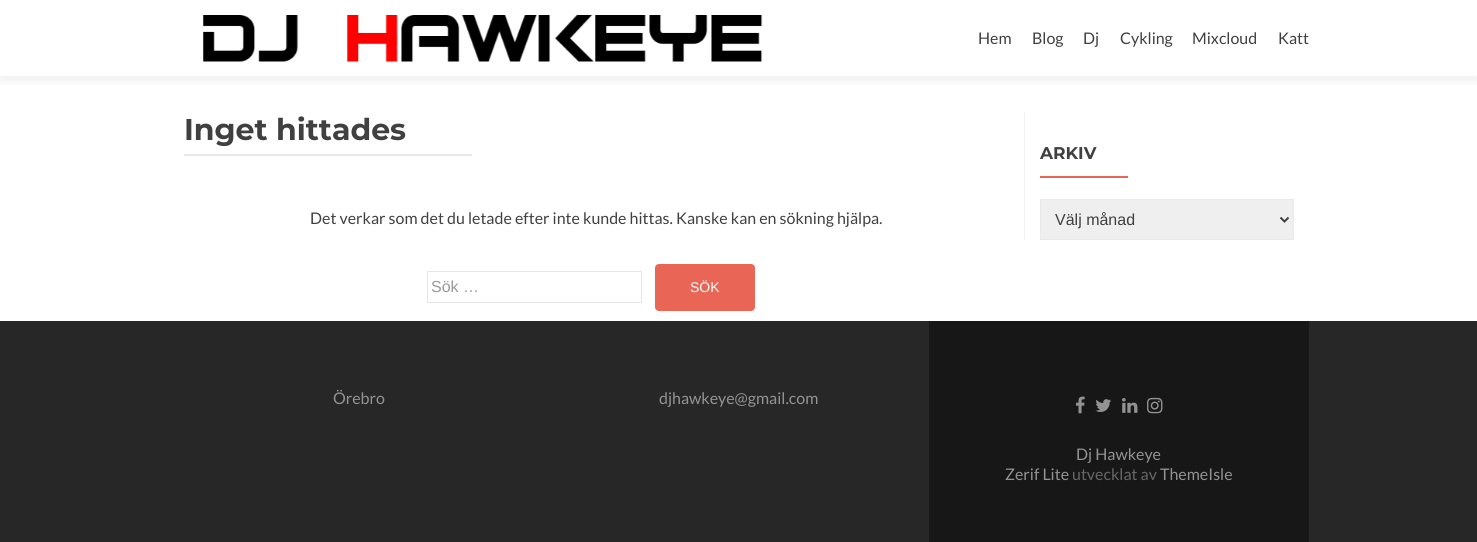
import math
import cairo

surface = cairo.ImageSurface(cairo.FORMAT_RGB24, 1477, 542)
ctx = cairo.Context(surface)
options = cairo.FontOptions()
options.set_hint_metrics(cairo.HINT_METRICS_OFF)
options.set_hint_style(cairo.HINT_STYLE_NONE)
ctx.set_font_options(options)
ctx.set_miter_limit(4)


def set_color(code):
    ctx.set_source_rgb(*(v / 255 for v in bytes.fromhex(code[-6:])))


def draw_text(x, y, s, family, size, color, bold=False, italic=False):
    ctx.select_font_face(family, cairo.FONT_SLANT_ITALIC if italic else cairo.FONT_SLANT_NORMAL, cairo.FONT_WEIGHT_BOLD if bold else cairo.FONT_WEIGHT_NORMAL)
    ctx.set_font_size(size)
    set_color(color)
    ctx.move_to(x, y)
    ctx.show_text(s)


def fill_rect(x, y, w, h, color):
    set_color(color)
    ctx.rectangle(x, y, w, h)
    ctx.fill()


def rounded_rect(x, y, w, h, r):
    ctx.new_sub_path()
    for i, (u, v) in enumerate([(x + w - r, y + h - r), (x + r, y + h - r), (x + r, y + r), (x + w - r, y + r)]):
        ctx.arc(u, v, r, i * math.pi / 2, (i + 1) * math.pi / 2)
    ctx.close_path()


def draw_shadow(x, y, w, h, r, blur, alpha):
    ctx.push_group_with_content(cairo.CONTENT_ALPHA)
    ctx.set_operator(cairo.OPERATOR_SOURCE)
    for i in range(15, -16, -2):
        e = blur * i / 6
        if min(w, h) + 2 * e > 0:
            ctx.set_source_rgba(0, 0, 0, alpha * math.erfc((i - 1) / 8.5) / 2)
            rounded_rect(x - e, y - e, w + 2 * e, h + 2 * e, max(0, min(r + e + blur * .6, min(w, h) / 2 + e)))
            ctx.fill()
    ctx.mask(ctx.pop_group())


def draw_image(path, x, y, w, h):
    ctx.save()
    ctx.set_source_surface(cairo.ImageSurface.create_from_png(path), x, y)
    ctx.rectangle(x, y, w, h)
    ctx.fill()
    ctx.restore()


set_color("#ffffff")
ctx.paint()
ctx.save()
ctx.rectangle(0, 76, 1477, 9)
ctx.clip()
set_color("#323232")
draw_shadow(0, 5, 1477, 76, 0, 5.5, 0.08)
ctx.restore()
draw_image("assets/img1.png", 203, 15, 560, 47)
draw_text(978, 44, "Hem", "Lato", 16, "#404040")
draw_text(1032, 44, "Blog", "Lato", 16, "#404040")
draw_text(1083, 44, "Dj", "Lato", 16, "#404040")
draw_text(1120, 44, "Cykling", "Lato", 16, "#404040")
draw_text(1192, 44, "Mixcloud", "Lato", 16, "#404040")
draw_text(1278, 44, "Katt", "Lato", 16, "#404040")
draw_text(184, 140, "Inget hittades", "Montserrat", 30, "#404040", bold=True)
fill_rect(184, 154, 288, 2, "#e9e9e9")
draw_text(310, 224, "Det verkar som det du letade efter inte kunde hittas. Kanske kan en sökning hjälpa.", "Lato", 16, "#404040")
ctx.rectangle(427.5, 271.5, 214, 31)
set_color("#e6e6e6")
ctx.set_line_width(1)
ctx.stroke()
draw_text(431, 292, "Sök …", "Liberation Sans", 16, "#999999")
set_color("#e96656")
rounded_rect(655, 264, 100, 47, 4)
ctx.fill()
draw_text(690, 292, "SÖK", "Liberation Sans", 14, "#ffffff")
fill_rect(1024, 112, 1, 128, "#f2f2f2")
draw_text(1040, 159, "ARKIV", "Montserrat", 17, "#404040", bold=True)
fill_rect(1040, 176, 88, 2, "#e96656")
set_color("#efefef")
ctx.rectangle(1040.5, 199.5, 253, 40)
ctx.fill_preserve()
set_color("#e9e9e9")
ctx.stroke()
ctx.new_path()
ctx.move_to(1280.5, 217.5)
ctx.line_to(1284.5, 221.5)
ctx.line_to(1288.5, 217.5)
set_color("#404040")
ctx.set_line_width(2)
ctx.stroke()
draw_text(1055, 225, "Välj månad", "Liberation Sans", 16, "#404040")
fill_rect(0, 321, 1477, 221, "#272727")
draw_text(333, 404, "Örebro", "Lato", 16, "#939393")
draw_text(659, 404, "djhawkeye@gmail.com", "Lato", 16, "#939393")
fill_rect(929, 321, 380, 221, "#171717")
draw_image("assets/img2.png", 1075, 396, 10, 18)
draw_image("assets/img3.png", 1095, 399, 17, 13)
draw_image("assets/img4.png", 1122, 398, 16, 15)
draw_image("assets/img5.png", 1147, 397, 16, 17)
draw_text(1076, 460, "Dj Hawkeye", "Lato", 16, "#939393")
draw_text(1005, 480, "Zerif Lite", "Lato", 16, "#939393")
draw_text(1072, 480, "utvecklat av", "Lato", 16, "#666666")
draw_text(1160, 480, "ThemeIsle", "Lato", 16, "#939393")
surface.write_to_png("output.png")
